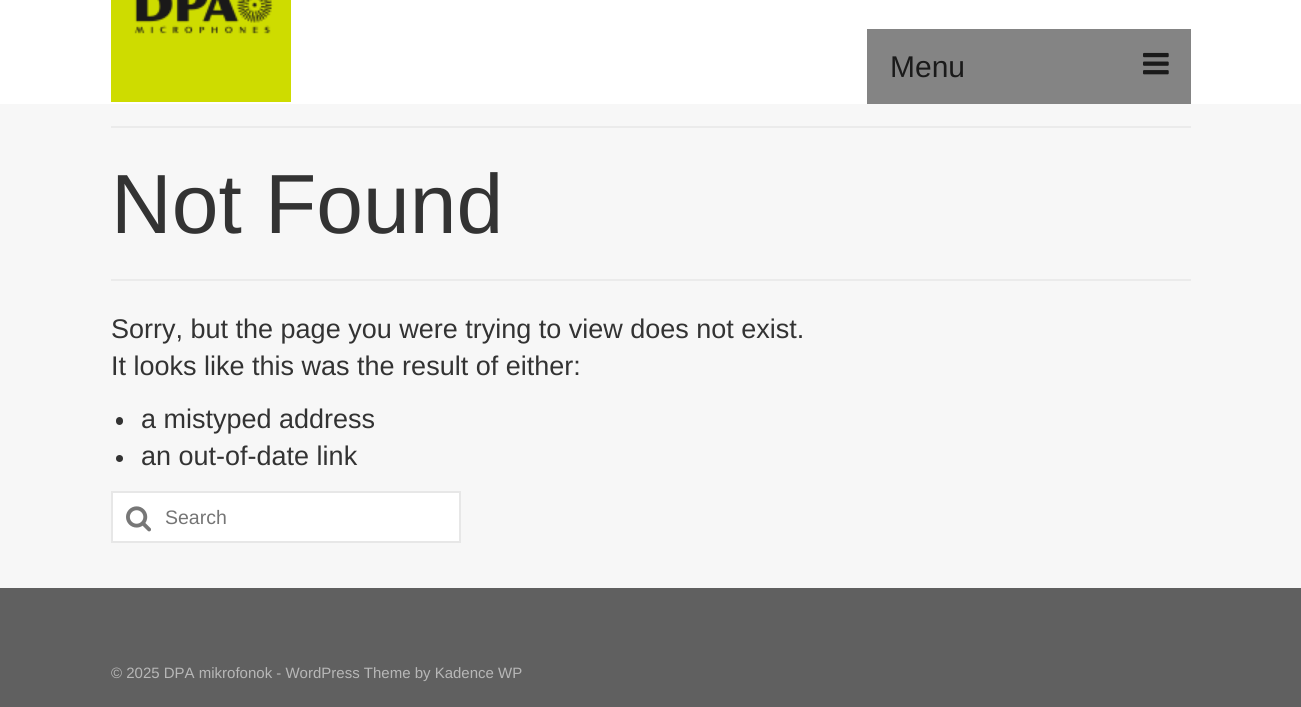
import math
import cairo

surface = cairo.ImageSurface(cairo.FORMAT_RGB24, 1301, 707)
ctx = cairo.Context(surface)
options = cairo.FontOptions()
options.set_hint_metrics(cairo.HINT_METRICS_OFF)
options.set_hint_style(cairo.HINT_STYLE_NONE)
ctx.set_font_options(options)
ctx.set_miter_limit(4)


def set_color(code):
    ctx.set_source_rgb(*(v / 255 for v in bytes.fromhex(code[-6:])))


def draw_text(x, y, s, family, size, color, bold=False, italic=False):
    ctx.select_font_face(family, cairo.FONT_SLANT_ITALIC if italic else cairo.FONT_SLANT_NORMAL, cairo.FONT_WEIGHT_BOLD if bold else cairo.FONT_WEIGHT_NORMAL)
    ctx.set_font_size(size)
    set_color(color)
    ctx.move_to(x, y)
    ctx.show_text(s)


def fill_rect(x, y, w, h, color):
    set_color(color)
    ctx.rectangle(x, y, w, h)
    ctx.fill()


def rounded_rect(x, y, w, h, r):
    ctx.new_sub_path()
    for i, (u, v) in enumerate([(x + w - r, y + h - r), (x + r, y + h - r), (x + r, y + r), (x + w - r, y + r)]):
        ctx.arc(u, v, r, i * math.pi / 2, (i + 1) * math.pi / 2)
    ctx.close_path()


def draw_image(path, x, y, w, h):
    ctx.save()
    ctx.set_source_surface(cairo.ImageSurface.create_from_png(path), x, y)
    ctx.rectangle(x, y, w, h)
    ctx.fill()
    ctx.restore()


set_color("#ffffff")
ctx.paint()
draw_image("assets/img1.png", 111, 0, 180, 102)
fill_rect(867, 29, 324, 75, "#848484")
draw_text(890, 77, "Menu", "Liberation Sans", 30, "#1a1a1a")
draw_image("assets/img2.png", 1143, 52, 26, 23)
fill_rect(0, 104, 1301, 484, "#f7f7f7")
fill_rect(111, 126, 1080, 2, "#ebebeb")
fill_rect(111, 279, 1080, 2, "#ebebeb")
draw_text(111, 233, "Not Found", "Liberation Sans", 84, "#333333")
draw_text(111, 338, "Sorry, but the page you were trying to view does not exist.", "Liberation Sans", 27, "#333333")
draw_text(111, 375, "It looks like this was the result of either:", "Liberation Sans", 27, "#333333")
rounded_rect(116, 417, 7, 8, 3.5)
ctx.fill()
draw_text(141, 428, "a mistyped address", "Liberation Sans", 27, "#333333")
ctx.new_path()
ctx.arc(119.5, 458.5, 3.5, 0, 2 * math.pi)
ctx.fill()
draw_text(141, 465, "an out-of-date link", "Liberation Sans", 27, "#333333")
set_color("#ffffff")
ctx.rectangle(112, 492, 348, 50)
ctx.fill_preserve()
set_color("#e7e7e7")
ctx.stroke()
draw_image("assets/img3.png", 126, 506, 25, 26)
draw_text(165, 524, "Search", "Liberation Sans", 19.5, "#757575")
fill_rect(0, 588, 1301, 119, "#606060")
draw_text(111, 678, "© 2025 DPA mikrofonok - WordPress Theme by Kadence WP", "Liberation Sans", 15, "#b7b7b7")
surface.write_to_png("output.png")
